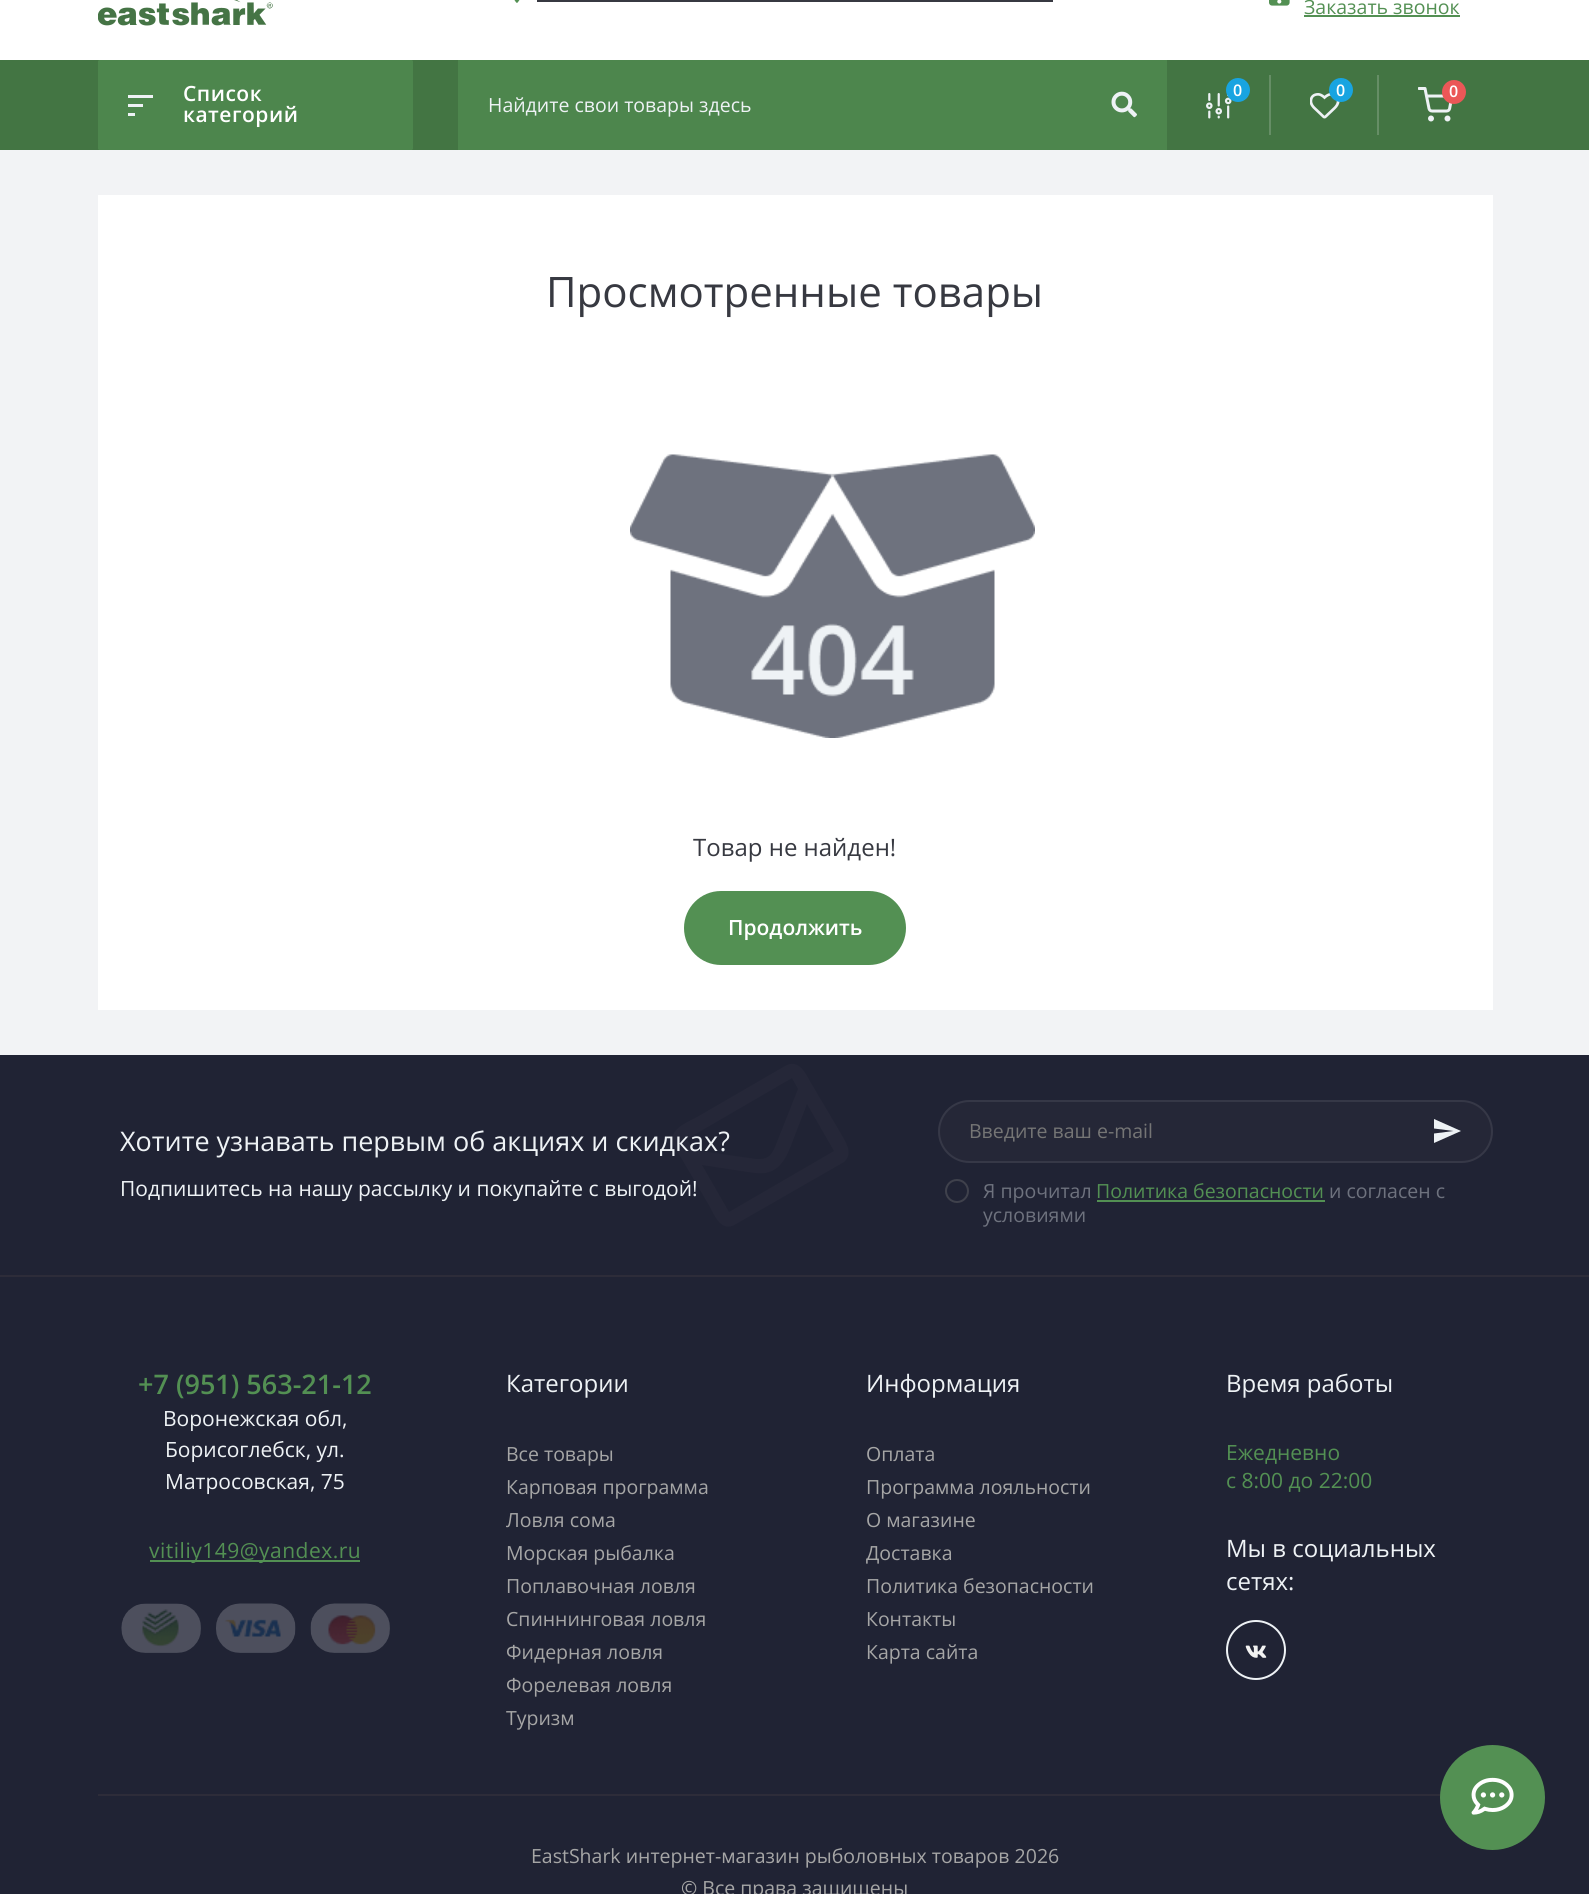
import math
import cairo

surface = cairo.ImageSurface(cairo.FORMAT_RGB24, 1589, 1894)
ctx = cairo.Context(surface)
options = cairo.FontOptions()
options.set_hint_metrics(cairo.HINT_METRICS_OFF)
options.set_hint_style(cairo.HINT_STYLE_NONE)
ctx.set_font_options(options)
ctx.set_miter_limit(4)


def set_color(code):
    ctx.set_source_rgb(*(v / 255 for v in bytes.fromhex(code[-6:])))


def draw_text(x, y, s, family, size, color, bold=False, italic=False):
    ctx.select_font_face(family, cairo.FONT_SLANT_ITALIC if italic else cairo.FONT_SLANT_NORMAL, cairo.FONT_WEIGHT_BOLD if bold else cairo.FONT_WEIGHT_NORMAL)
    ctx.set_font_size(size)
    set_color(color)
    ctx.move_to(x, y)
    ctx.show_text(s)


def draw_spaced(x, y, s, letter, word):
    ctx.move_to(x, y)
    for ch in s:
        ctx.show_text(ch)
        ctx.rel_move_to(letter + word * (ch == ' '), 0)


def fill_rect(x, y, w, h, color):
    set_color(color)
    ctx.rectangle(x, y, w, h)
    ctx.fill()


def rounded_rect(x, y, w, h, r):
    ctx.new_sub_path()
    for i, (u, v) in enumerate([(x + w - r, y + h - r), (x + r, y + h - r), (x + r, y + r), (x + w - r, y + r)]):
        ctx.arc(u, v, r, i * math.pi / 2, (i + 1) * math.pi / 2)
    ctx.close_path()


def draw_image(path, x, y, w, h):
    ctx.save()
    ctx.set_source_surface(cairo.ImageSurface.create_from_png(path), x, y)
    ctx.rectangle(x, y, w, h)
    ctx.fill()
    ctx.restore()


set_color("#f2f3f5")
ctx.paint()
fill_rect(0, 0, 1589, 60, "#ffffff")
draw_image("assets/img1.png", 98, 0, 175, 26)
draw_image("assets/img2.png", 514, 0, 6, 3)
fill_rect(537, 0, 516, 2, "#373941")
draw_image("assets/img3.png", 1269, 0, 21, 6)
draw_text(1304, 14, "Заказать звонок", "Open Sans", 19.5, "#539053")
fill_rect(1304, 15, 156, 2, "#539053")
fill_rect(0, 60, 1589, 90, "#437543")
set_color("#4d864d")
rounded_rect(98, 60, 315, 90, 1.5)
ctx.fill()
fill_rect(128, 95, 25, 3, "#eef2f5")
fill_rect(128, 104, 15, 3, "#eef2f5")
fill_rect(128, 113, 7, 3, "#eef2f5")
ctx.select_font_face("Open Sans SemiBold")
ctx.set_font_size(21)
set_color("#ffffff")
draw_spaced(183, 101, "Список", 0.5, 0)
draw_spaced(183, 122, "категорий", 0.5, 0)
draw_image("assets/img4.png", 1206, 93, 26, 26)
set_color("#18a4e1")
ctx.arc(1238, 90, 12, 0, 2 * math.pi)
ctx.fill()
draw_text(1233, 96, "0", "Open Sans SemiBold", 16, "#ffffff")
fill_rect(1269, 75, 2, 60, "#668e66")
draw_image("assets/img5.png", 1310, 93, 30, 26)
set_color("#18a4e1")
ctx.arc(1341, 90, 12, 0, 2 * math.pi)
ctx.fill()
draw_text(1336, 96, "0", "Open Sans SemiBold", 16, "#ffffff")
fill_rect(1377, 75, 2, 60, "#668e66")
draw_image("assets/img6.png", 1418, 87, 35, 35)
set_color("#eb5757")
ctx.arc(1454, 92, 12, 0, 2 * math.pi)
ctx.fill()
draw_text(1449, 97, "0", "Open Sans SemiBold", 16, "#ffffff")
fill_rect(458, 60, 709, 90, "#4d864d")
draw_text(488, 112, "Найдите свои товары здесь", "Open Sans", 19.5, "#eef2f5")
draw_image("assets/img7.png", 1111, 91, 26, 27)
fill_rect(98, 195, 1395, 815, "#ffffff")
draw_text(546, 307, "Просмотренные товары", "Open Sans", 42, "#373941")
draw_image("assets/img8.png", 630, 454, 405, 284)
draw_text(693, 856, "Товар не найден!", "Open Sans", 24, "#373941")
set_color("#539053")
rounded_rect(684, 891, 222, 74, 37)
ctx.fill()
draw_text(728, 935, "Продолжить", "Open Sans SemiBold", 21, "#ffffff")
fill_rect(0, 1055, 1589, 220, "#202334")
fill_rect(0, 1275, 1589, 2, "#2d2c39")
set_color("#252738")
ctx.new_path()
ctx.move_to(785, 1066)
ctx.curve_to(799, 1058, 806, 1074, 811, 1083)
ctx.line_to(840, 1132)
ctx.curve_to(845, 1141, 854, 1153, 844, 1162)
ctx.line_to(736, 1224)
ctx.curve_to(722, 1233, 715, 1217, 710, 1207)
ctx.line_to(673, 1144)
ctx.curve_to(668, 1129, 688, 1122, 697, 1117)
ctx.close_path()
ctx.move_to(792, 1078)
ctx.line_to(687, 1139)
ctx.line_to(693, 1150)
ctx.line_to(749, 1158)
ctx.curve_to(767, 1161, 771, 1158, 777, 1142)
ctx.line_to(798, 1089)
ctx.close_path()
ctx.move_to(729, 1212)
ctx.line_to(834, 1151)
ctx.line_to(807, 1104)
ctx.line_to(795, 1135)
ctx.curve_to(789, 1150, 784, 1170, 765, 1173)
ctx.curve_to(757, 1174, 749, 1172, 741, 1171)
ctx.line_to(702, 1165)
ctx.close_path()
ctx.fill()
draw_text(120, 1151, "Хотите узнавать первым об акциях и скидках?", "Open Sans", 27, "#eef2f5")
draw_text(120, 1196, "Подпишитесь на нашу рассылку и покупайте с выгодой!", "Open Sans", 21, "#eef2f5")
set_color("#252737")
rounded_rect(939, 1101, 553, 61, 30.5)
ctx.fill_preserve()
set_color("#363847")
ctx.stroke()
draw_text(969, 1138, "Введите ваш e-mail", "Open Sans", 19.5, "#757575")
set_color("#eef2f5")
ctx.new_path()
ctx.move_to(1434, 1143)
ctx.line_to(1434, 1133.5)
ctx.line_to(1453.5, 1131)
ctx.line_to(1434, 1128.5)
ctx.line_to(1434, 1119)
ctx.line_to(1461, 1131)
ctx.close_path()
ctx.fill()
ctx.arc(957, 1191, 11, 0, 2 * math.pi)
set_color("#3f414c")
ctx.stroke()
draw_text(983, 1198, "Я прочитал", "Open Sans", 19.5, "#6e727e")
draw_text(1096, 1198, "Политика безопасности", "Open Sans", 19.5, "#539053")
fill_rect(1097, 1200, 228, 2, "#539053")
draw_text(1329, 1198, "и согласен с", "Open Sans", 19.5, "#6e727e")
draw_text(983, 1222, "условиями", "Open Sans", 19.5, "#6e727e")
fill_rect(0, 1277, 1589, 617, "#202334")
draw_text(138, 1394, "+7 (951) 563-21-12", "Open Sans SemiBold", 27, "#539053")
draw_text(163, 1426, "Воронежская обл,", "Open Sans", 21, "#eef2f5")
draw_text(165, 1457, "Борисоглебск, ул.", "Open Sans", 21, "#eef2f5")
draw_text(165, 1489, "Матросовская, 75", "Open Sans", 21, "#eef2f5")
fill_rect(150, 1560, 210, 2, "#539053")
draw_spaced(149, 1558, "vitiliy149@yandex.ru", 0.5, 0)
draw_image("assets/img9.png", 121, 1603, 80, 50)
draw_image("assets/img10.png", 216, 1603, 80, 50)
draw_image("assets/img11.png", 310, 1603, 80, 50)
draw_text(506, 1392, "Категории", "Open Sans", 24, "#eef2f5")
draw_text(506, 1461, "Все товары", "Open Sans", 19.5, "#a6a6a6")
draw_text(506, 1494, "Карповая программа", "Open Sans", 19.5, "#a6a6a6")
draw_text(506, 1527, "Ловля сома", "Open Sans", 19.5, "#a6a6a6")
draw_text(506, 1560, "Морская рыбалка", "Open Sans", 19.5, "#a6a6a6")
draw_text(506, 1593, "Поплавочная ловля", "Open Sans", 19.5, "#a6a6a6")
draw_text(506, 1626, "Спиннинговая ловля", "Open Sans", 19.5, "#a6a6a6")
draw_text(506, 1659, "Фидерная ловля", "Open Sans", 19.5, "#a6a6a6")
draw_text(506, 1692, "Форелевая ловля", "Open Sans", 19.5, "#a6a6a6")
draw_text(506, 1725, "Туризм", "Open Sans", 19.5, "#a6a6a6")
draw_text(866, 1392, "Информация", "Open Sans", 24, "#eef2f5")
draw_text(866, 1461, "Оплата", "Open Sans", 19.5, "#a6a6a6")
draw_text(866, 1494, "Программа лояльности", "Open Sans", 19.5, "#a6a6a6")
draw_text(866, 1527, "О магазине", "Open Sans", 19.5, "#a6a6a6")
draw_text(866, 1560, "Доставка", "Open Sans", 19.5, "#a6a6a6")
draw_text(866, 1593, "Политика безопасности", "Open Sans", 19.5, "#a6a6a6")
draw_text(866, 1626, "Контакты", "Open Sans", 19.5, "#a6a6a6")
draw_text(866, 1659, "Карта сайта", "Open Sans", 19.5, "#a6a6a6")
draw_text(1226, 1392, "Время работы", "Open Sans", 24, "#eef2f5")
draw_text(1226, 1460, "Ежедневно", "Open Sans", 21, "#539053")
draw_text(1226, 1488, "с 8:00 до 22:00", "Open Sans", 21, "#539053")
draw_text(1226, 1557, "Мы в социальных", "Open Sans", 24, "#eef2f5")
draw_text(1226, 1590, "сетях:", "Open Sans", 24, "#eef2f5")
ctx.new_path()
ctx.arc(1256, 1650, 29, 0, 2 * math.pi)
ctx.stroke()
draw_image("assets/img12.png", 1245, 1645, 22, 13)
fill_rect(98, 1794, 1343, 2, "#2d2c39")
draw_text(531, 1863, "EastShark интернет-магазин рыболовных товаров 2026", "Open Sans", 19.5, "#a6a6a6")
draw_text(681, 1895, "© Все права защищены", "Open Sans", 19.5, "#a6a6a6")
set_color("#539053")
ctx.new_path()
ctx.arc(1492.5, 1797.5, 52.5, 0, 2 * math.pi)
ctx.fill()
draw_image("assets/img13.png", 1471, 1777, 43, 38)
surface.write_to_png("output.png")
